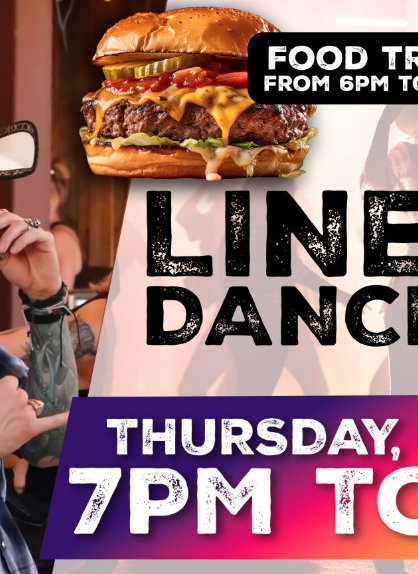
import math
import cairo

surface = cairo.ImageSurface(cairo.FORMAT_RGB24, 418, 574)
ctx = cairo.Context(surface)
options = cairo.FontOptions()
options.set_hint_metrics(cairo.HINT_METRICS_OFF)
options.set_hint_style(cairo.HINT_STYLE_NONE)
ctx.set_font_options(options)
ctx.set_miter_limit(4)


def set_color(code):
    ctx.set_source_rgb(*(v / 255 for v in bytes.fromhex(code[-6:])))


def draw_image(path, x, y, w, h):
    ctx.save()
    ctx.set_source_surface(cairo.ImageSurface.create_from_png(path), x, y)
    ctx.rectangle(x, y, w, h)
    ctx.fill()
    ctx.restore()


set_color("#ffffff")
ctx.paint()
draw_image("assets/img1.png", 0, 0, 418, 574)
surface.write_to_png("output.png")
